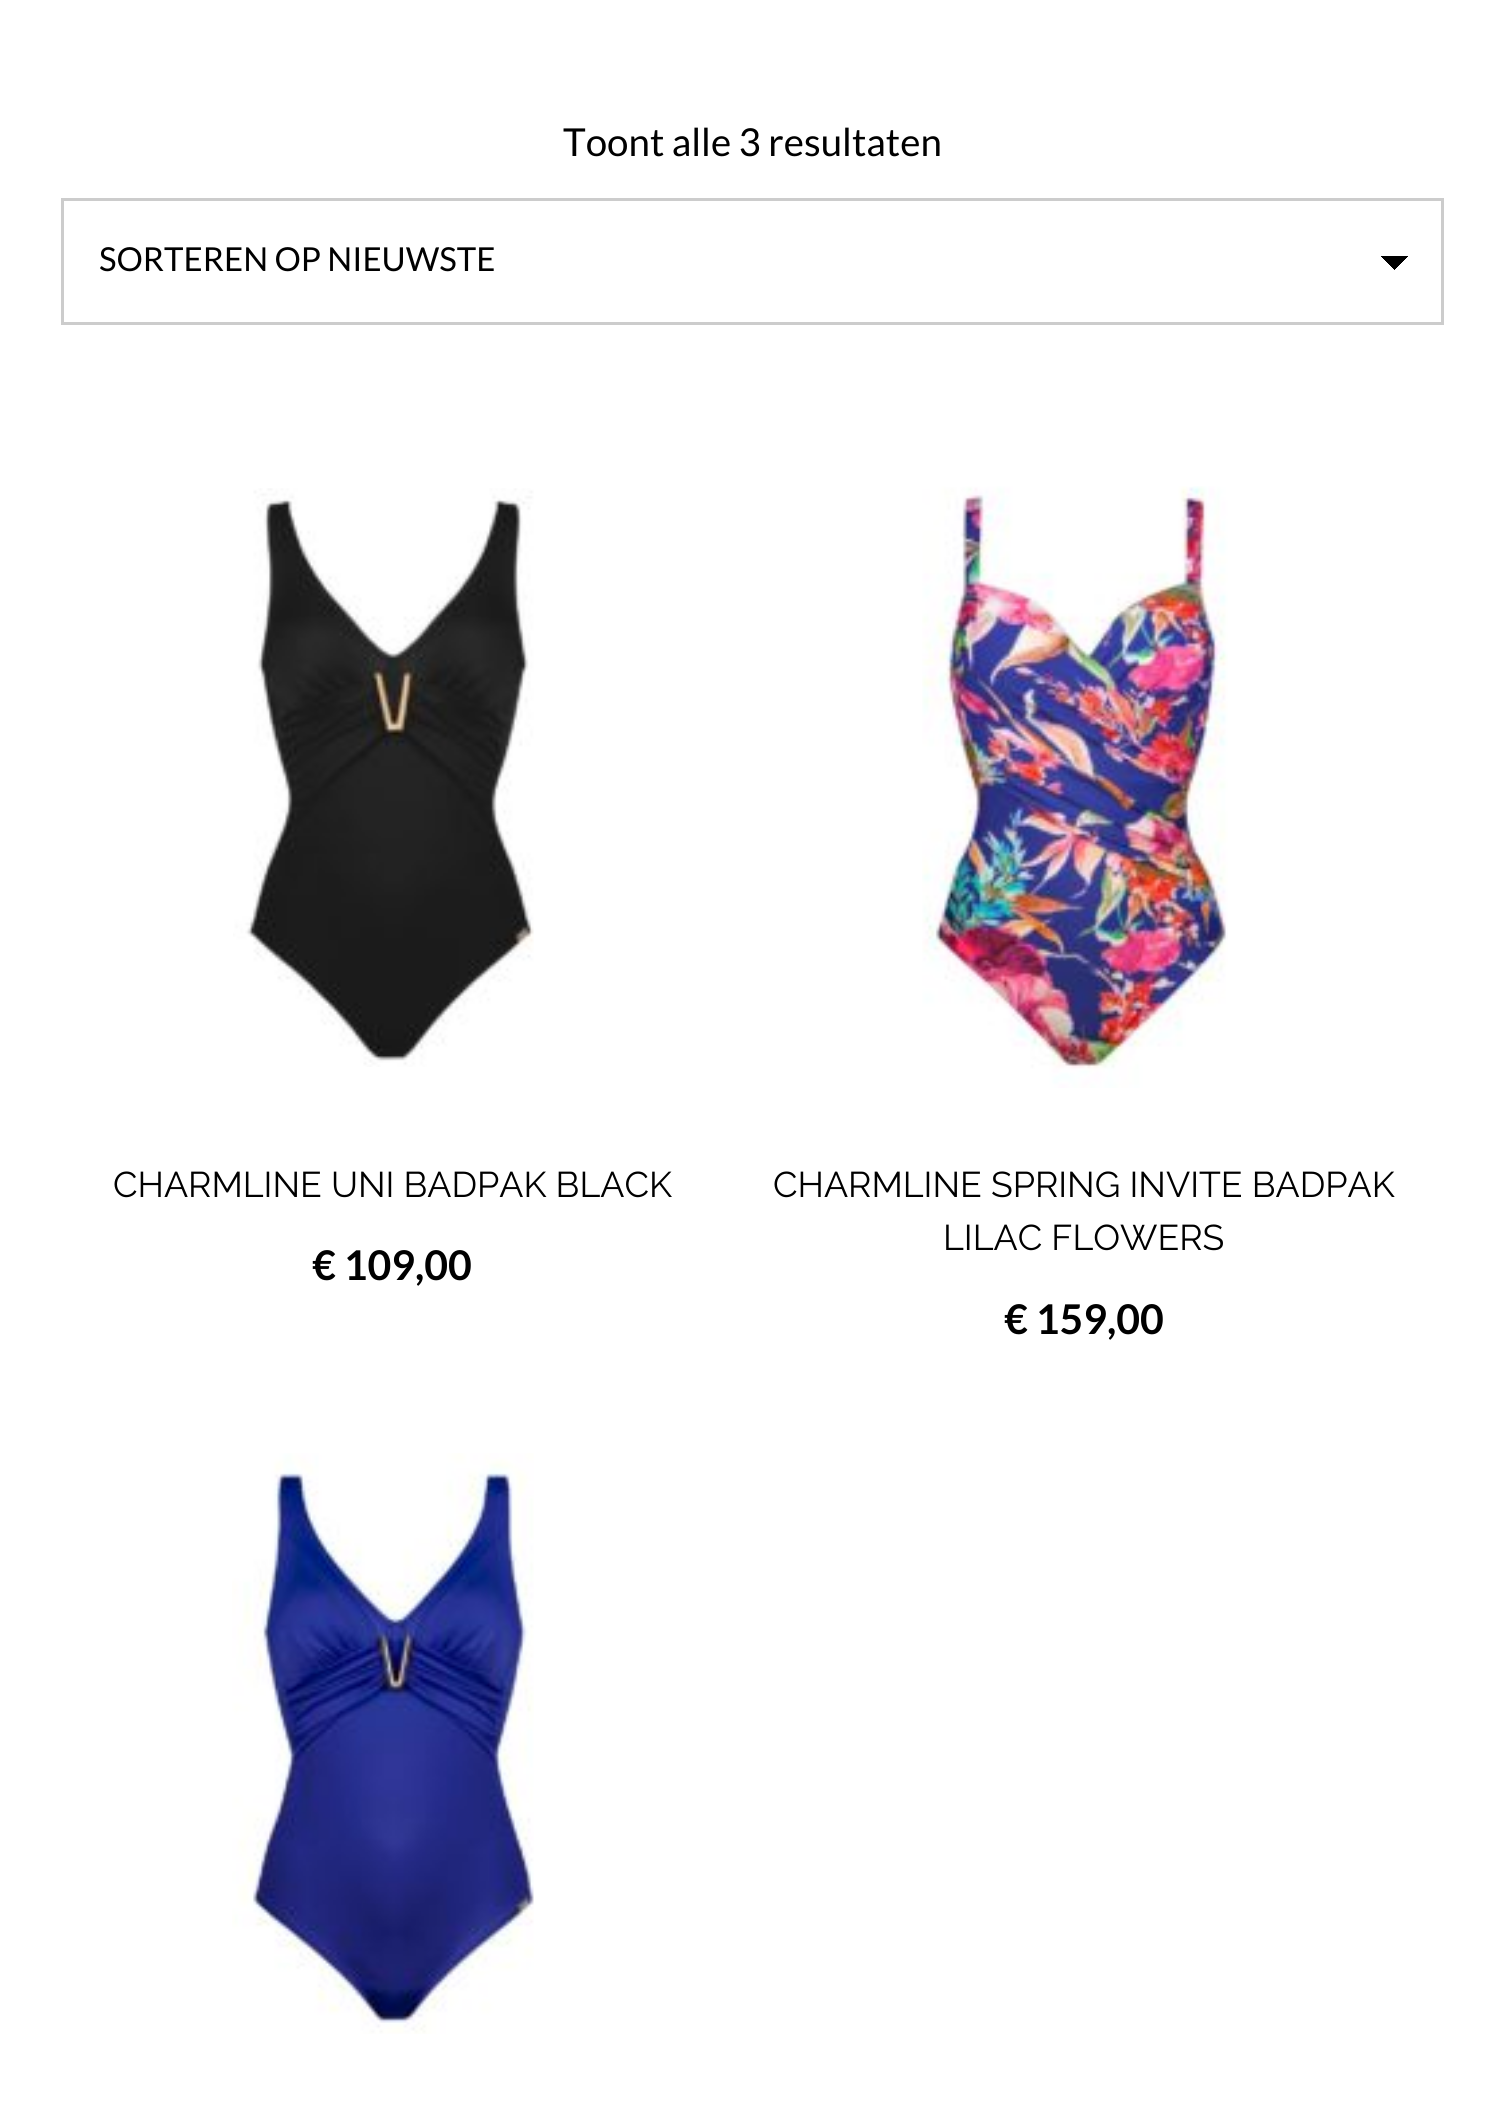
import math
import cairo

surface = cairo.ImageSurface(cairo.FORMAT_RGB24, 1503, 2117)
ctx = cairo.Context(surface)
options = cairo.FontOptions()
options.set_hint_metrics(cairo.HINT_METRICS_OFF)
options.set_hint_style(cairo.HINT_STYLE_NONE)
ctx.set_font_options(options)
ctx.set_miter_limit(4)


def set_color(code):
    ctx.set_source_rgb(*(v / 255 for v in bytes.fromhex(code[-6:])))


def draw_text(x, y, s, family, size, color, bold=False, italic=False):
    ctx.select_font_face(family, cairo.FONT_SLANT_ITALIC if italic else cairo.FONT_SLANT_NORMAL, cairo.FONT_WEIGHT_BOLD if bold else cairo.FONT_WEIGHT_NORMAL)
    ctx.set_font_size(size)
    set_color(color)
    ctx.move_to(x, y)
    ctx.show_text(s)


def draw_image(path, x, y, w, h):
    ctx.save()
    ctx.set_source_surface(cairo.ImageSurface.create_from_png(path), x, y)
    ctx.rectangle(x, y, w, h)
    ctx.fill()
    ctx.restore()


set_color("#ffffff")
ctx.paint()
draw_text(563, 156, "Toont alle 3 resultaten", "Lato", 38.5, "#000000")
gradient = cairo.LinearGradient(1394, 256, 1408, 270)
gradient.add_color_stop_rgba(0.5, 0, 0, 0, 1)
gradient.add_color_stop_rgba(0.5, 1, 1, 1, 1)
ctx.set_source(gradient)
ctx.rectangle(1394, 256, 14, 14)
ctx.fill()
gradient = cairo.LinearGradient(1381, 270, 1394, 256)
gradient.add_color_stop_rgba(0.5, 1, 1, 1, 1)
gradient.add_color_stop_rgba(0.5, 0, 0, 0, 1)
ctx.set_source(gradient)
ctx.rectangle(1381, 256, 13, 13)
ctx.fill()
ctx.rectangle(62.5, 199.5, 1380, 124)
set_color("#cccccc")
ctx.set_line_width(3)
ctx.stroke()
draw_text(99, 271, "SORTEREN OP NIEUWSTE", "Lato", 33, "#000000")
draw_image("assets/img1.png", 233, 488, 301, 579)
draw_text(113, 1197, "CHARMLINE UNI BADPAK BLACK", "Raleway Thin", 35.75, "#000000")
draw_text(312, 1280, "€ 109,00", "Lato", 41, "#000000", bold=True)
draw_image("assets/img2.png", 922, 486, 306, 602)
draw_text(773, 1197, "CHARMLINE SPRING INVITE BADPAK", "Raleway Thin", 35.75, "#000000")
draw_text(943, 1250, "LILAC FLOWERS", "Raleway Thin", 35.75, "#000000")
draw_text(1004, 1334, "€ 159,00", "Lato", 41, "#000000", bold=True)
draw_image("assets/img3.png", 232, 1453, 302, 581)
surface.write_to_png("output.png")
